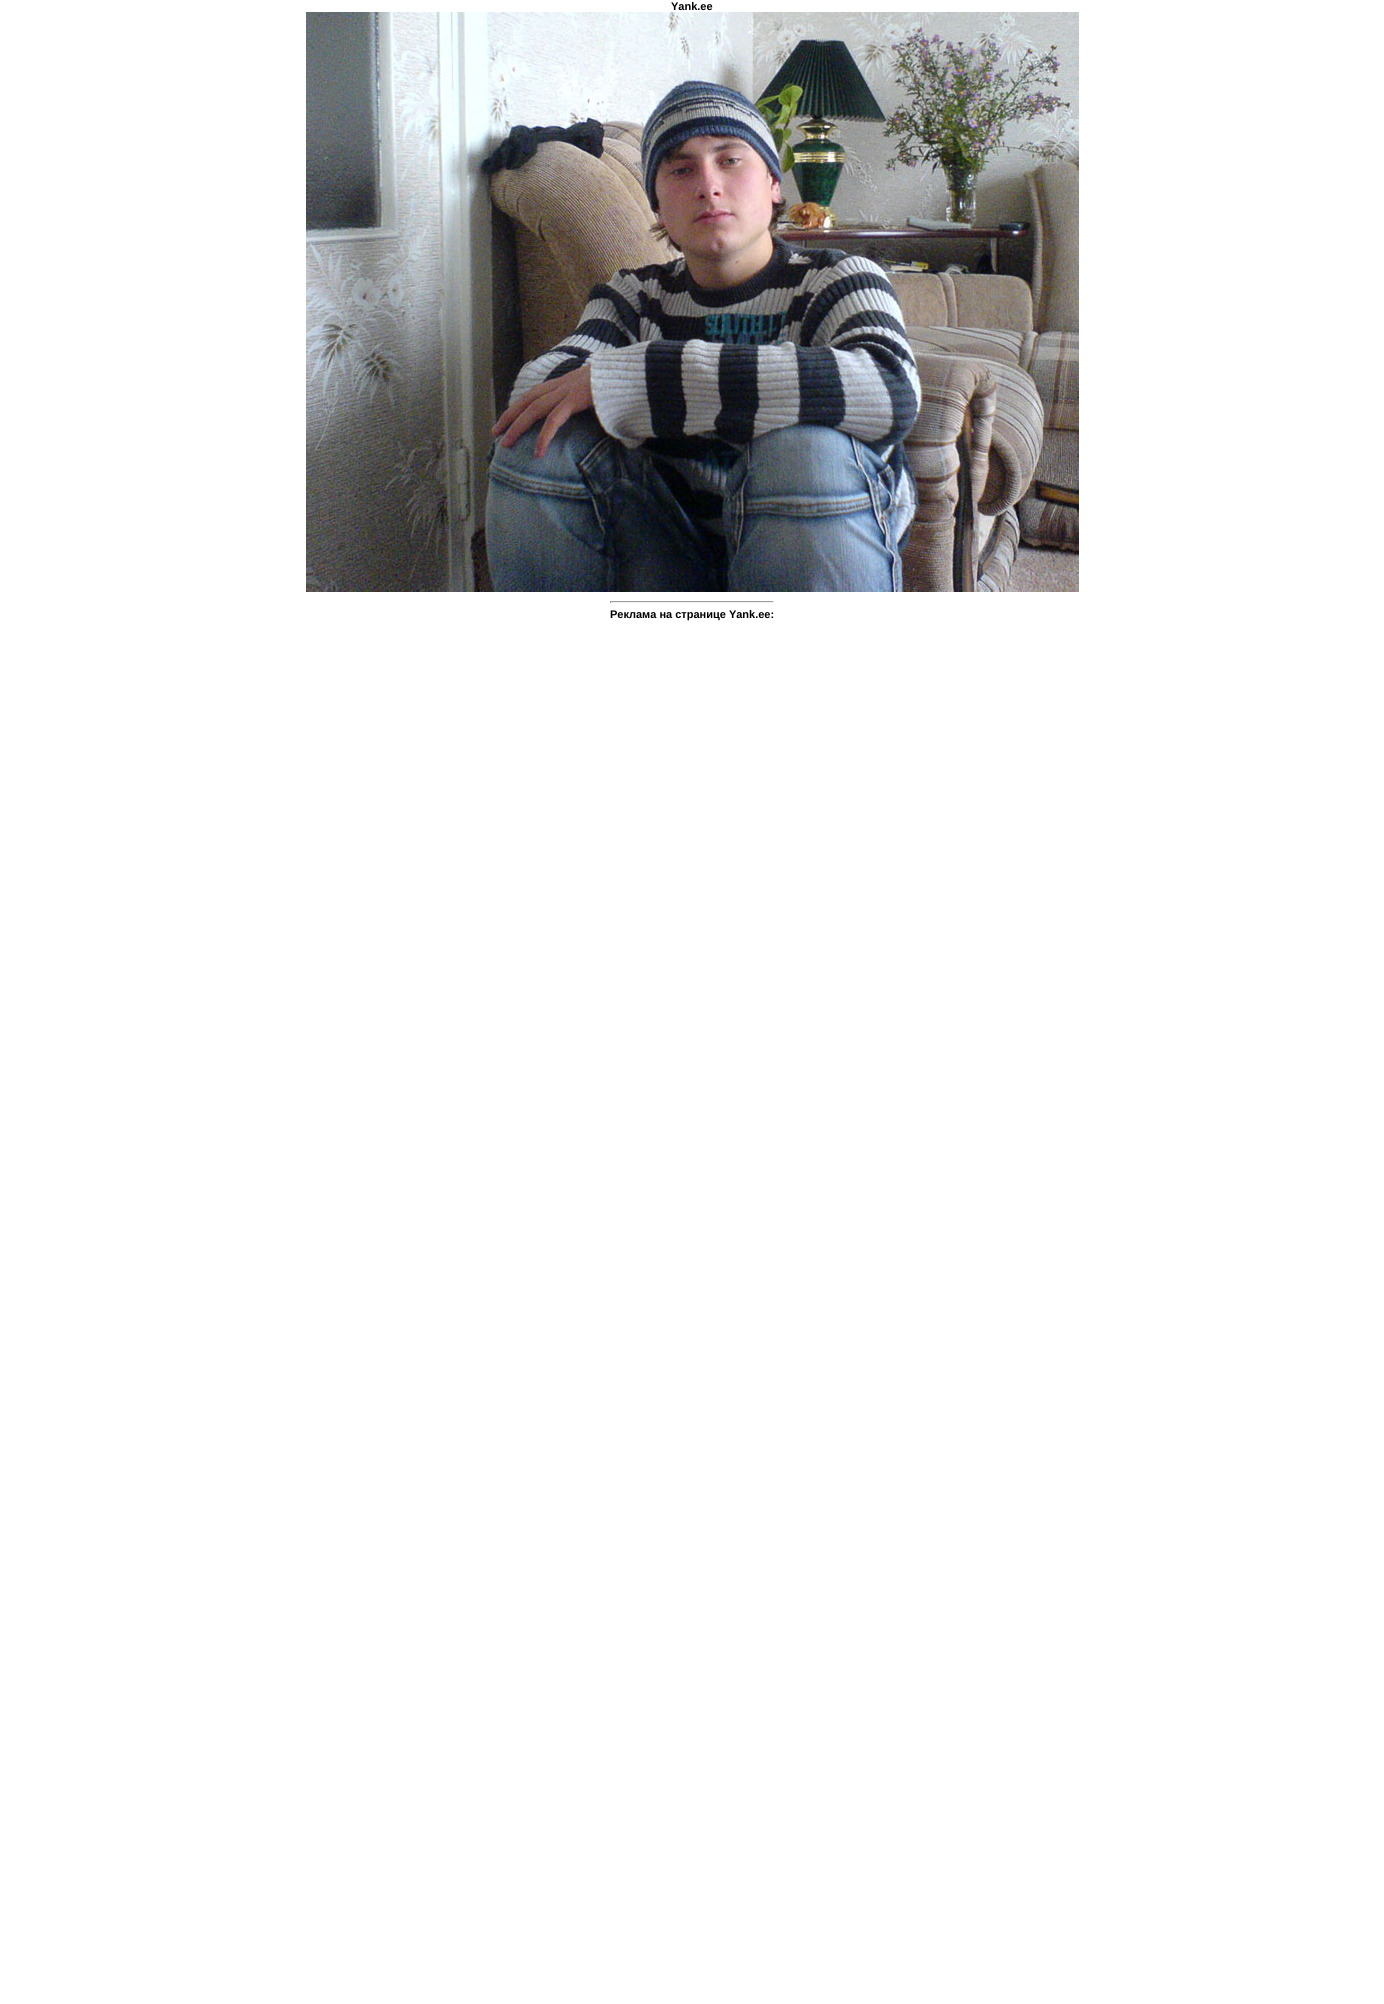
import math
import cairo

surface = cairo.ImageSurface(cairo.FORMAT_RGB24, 1384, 2004)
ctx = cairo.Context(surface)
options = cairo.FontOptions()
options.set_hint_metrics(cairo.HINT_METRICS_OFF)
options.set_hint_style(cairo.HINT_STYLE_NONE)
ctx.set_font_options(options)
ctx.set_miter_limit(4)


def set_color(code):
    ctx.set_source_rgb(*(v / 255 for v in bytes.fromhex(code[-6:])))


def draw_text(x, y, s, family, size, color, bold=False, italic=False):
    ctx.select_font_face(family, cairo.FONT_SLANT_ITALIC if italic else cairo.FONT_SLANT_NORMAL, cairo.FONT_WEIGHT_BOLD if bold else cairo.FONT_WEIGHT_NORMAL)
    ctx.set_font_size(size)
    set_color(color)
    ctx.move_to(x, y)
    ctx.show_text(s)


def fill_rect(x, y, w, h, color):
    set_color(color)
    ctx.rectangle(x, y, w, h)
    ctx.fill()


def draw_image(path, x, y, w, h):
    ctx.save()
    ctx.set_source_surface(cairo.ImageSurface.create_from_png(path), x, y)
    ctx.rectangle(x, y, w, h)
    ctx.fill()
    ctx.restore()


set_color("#ffffff")
ctx.paint()
draw_text(671, 10, "Yank.ee", "Liberation Sans", 11, "#000000", bold=True)
draw_image("assets/img1.png", 306, 12, 773, 580)
fill_rect(610, 601, 164, 1, "#9f9f9f")
fill_rect(773, 601, 1, 2, "#eeeeee")
fill_rect(610, 602, 164, 1, "#eeeeee")
fill_rect(610, 601, 1, 2, "#9f9f9f")
draw_text(610, 618, "Реклама на странице Yank.ee:", "Liberation Sans", 11, "#000000", bold=True)
surface.write_to_png("output.png")
